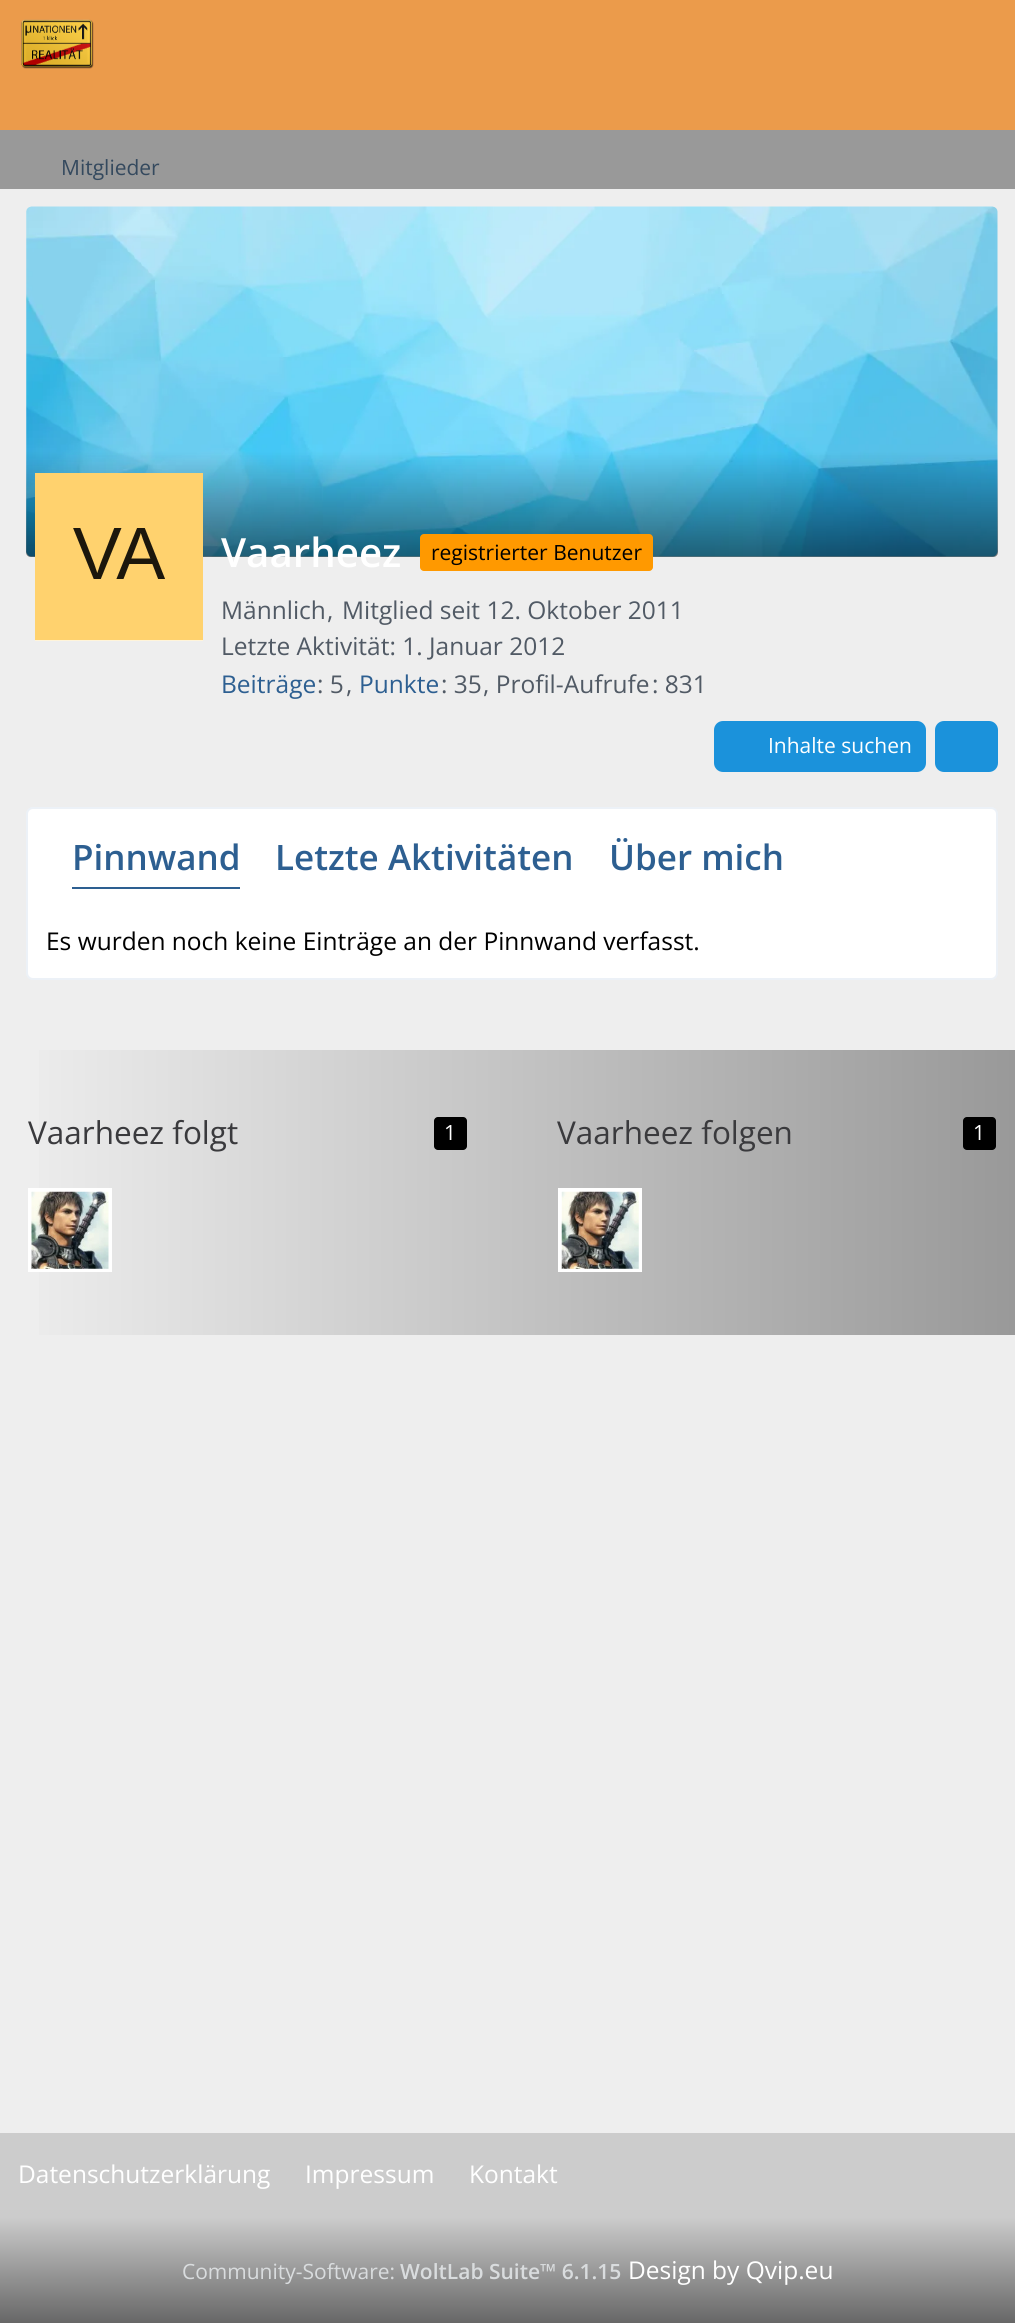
import math
import cairo

surface = cairo.ImageSurface(cairo.FORMAT_RGB24, 1015, 2323)
ctx = cairo.Context(surface)
options = cairo.FontOptions()
options.set_hint_metrics(cairo.HINT_METRICS_OFF)
options.set_hint_style(cairo.HINT_STYLE_NONE)
ctx.set_font_options(options)
ctx.set_miter_limit(4)


def set_color(code):
    ctx.set_source_rgb(*(v / 255 for v in bytes.fromhex(code[-6:])))


def draw_text(x, y, s, family, size, color, bold=False, italic=False):
    ctx.select_font_face(family, cairo.FONT_SLANT_ITALIC if italic else cairo.FONT_SLANT_NORMAL, cairo.FONT_WEIGHT_BOLD if bold else cairo.FONT_WEIGHT_NORMAL)
    ctx.set_font_size(size)
    set_color(color)
    ctx.move_to(x, y)
    ctx.show_text(s)


def fill_rect(x, y, w, h, color):
    set_color(color)
    ctx.rectangle(x, y, w, h)
    ctx.fill()


def rounded_rect(x, y, w, h, r):
    ctx.new_sub_path()
    for i, (u, v) in enumerate([(x + w - r, y + h - r), (x + r, y + h - r), (x + r, y + r), (x + w - r, y + r)]):
        ctx.arc(u, v, r, i * math.pi / 2, (i + 1) * math.pi / 2)
    ctx.close_path()


def draw_image(path, x, y, w, h):
    ctx.save()
    ctx.set_source_surface(cairo.ImageSurface.create_from_png(path), x, y)
    ctx.rectangle(x, y, w, h)
    ctx.fill()
    ctx.restore()


set_color("#eb9b4b")
ctx.paint()
draw_image("assets/img1.png", 21, 19, 73, 50)
fill_rect(0, 130, 1015, 59, "#999999")
draw_text(61, 175, "Mitglieder", "Open Sans", 21, "#34495e")
fill_rect(0, 189, 1015, 1944, "#eeeeee")
draw_image("assets/img2.png", 26, 206, 972, 351)
gradient = cairo.LinearGradient(512, 206, 512, 557)
gradient.add_color_stop_rgba(0.7, 0, 0, 0, 0)
gradient.add_color_stop_rgba(1, 0, 0, 0, 0.5)
ctx.set_source(gradient)
ctx.new_path()
ctx.move_to(26, 207)
ctx.line_to(998, 207)
ctx.line_to(998, 552)
ctx.curve_to(998, 555, 996, 557, 993, 557)
ctx.line_to(31, 557)
ctx.curve_to(28, 557, 26, 555, 26, 552)
ctx.close_path()
ctx.fill()
fill_rect(35, 640, 168, 1, "#ffffff")
draw_image("assets/img3.png", 35, 473, 168, 168)
draw_text(221, 567, "Vaarheez", "Open Sans SemiBold", 40.25, "#ffffff")
set_color("#ff9900")
rounded_rect(420, 534, 233, 37, 4)
ctx.fill()
draw_text(431, 560, "registrierter Benutzer", "Open Sans", 21, "#000000")
draw_text(221, 619, "Männlich", "Open Sans", 24.5, "#515a65")
draw_text(327, 619, ",", "Open Sans", 24.5, "#515a65")
draw_text(342, 619, "Mitglied seit 12. Oktober 2011", "Open Sans", 24.5, "#515a65")
draw_text(221, 655, "Letzte Aktivität: 1. Januar 2012", "Open Sans", 24.5, "#515a65")
draw_text(221, 693, "Beiträge", "Open Sans", 24.5, "#2d5f91")
draw_text(317, 693, ": 5", "Open Sans", 24.5, "#515a65")
draw_text(346, 693, ",", "Open Sans", 24.5, "#515a65")
draw_text(359, 693, "Punkte", "Open Sans", 24.5, "#2d5f91")
draw_text(441, 693, ": 35", "Open Sans", 24.5, "#515a65")
draw_text(483, 693, ", Profil-Aufrufe", "Open Sans", 24.5, "#515a65")
draw_text(652, 693, ": 831", "Open Sans", 24.5, "#515a65")
set_color("#1b92db")
rounded_rect(714, 721, 212, 51, 9)
ctx.fill()
draw_text(768, 753, "Inhalte suchen", "Open Sans", 21, "#ffffff")
set_color("#1b92db")
rounded_rect(935, 721, 63, 51, 9)
ctx.fill()
set_color("#ffffff")
rounded_rect(27, 808, 970, 171, 6)
ctx.fill_preserve()
set_color("#ecf1f7")
ctx.stroke()
draw_text(72, 870, "Pinnwand", "Open Sans SemiBold", 35, "#2d5f91")
fill_rect(72, 887, 168, 2, "#2d5f91")
draw_text(275, 870, "Letzte Aktivitäten", "Open Sans SemiBold", 35, "#2d5f91")
draw_text(609, 870, "Über mich", "Open Sans SemiBold", 35, "#2d5f91")
draw_text(46, 950, "Es wurden noch keine Einträge an der Pinnwand verfasst.", "Open Sans", 24.5, "#000000")
gradient = cairo.LinearGradient(9, 1193, 1015, 1193)
gradient.add_color_stop_rgba(0, 0.933, 0.933, 0.933, 1)
gradient.add_color_stop_rgba(1, 0.6, 0.6, 0.6, 1)
ctx.set_source(gradient)
ctx.rectangle(39, 1050, 976, 285)
ctx.fill()
draw_text(28, 1144, "Vaarheez folgt", "Open Sans", 31.5, "#3a3a3d")
set_color("#000000")
rounded_rect(434, 1117, 33, 33, 4)
ctx.fill()
draw_text(444, 1140, "1", "Open Sans", 21, "#ffffff")
fill_rect(28, 1188, 84, 84, "#ffffff")
draw_image("assets/img4.png", 31, 1191, 78, 78)
draw_text(557, 1144, "Vaarheez folgen", "Open Sans", 31.5, "#3a3a3d")
set_color("#000000")
rounded_rect(963, 1117, 33, 33, 4)
ctx.fill()
draw_text(973, 1140, "1", "Open Sans", 21, "#ffffff")
fill_rect(558, 1188, 84, 84, "#ffffff")
draw_image("assets/img5.png", 561, 1191, 78, 78)
fill_rect(0, 2133, 1015, 84, "#cccccc")
draw_text(18, 2183, "Datenschutzerklärung", "Open Sans", 24.5, "#ffffff")
draw_text(305, 2183, "Impressum", "Open Sans", 24.5, "#ffffff")
draw_text(469, 2183, "Kontakt", "Open Sans", 24.5, "#ffffff")
gradient = cairo.LinearGradient(508, 2217, 508, 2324)
gradient.add_color_stop_rgba(0, 0.8, 0.8, 0.8, 1)
gradient.add_color_stop_rgba(1, 0.4, 0.4, 0.4, 1)
ctx.set_source(gradient)
ctx.rectangle(0, 2217, 1015, 106)
ctx.fill()
draw_text(182, 2279, "Community-Software:", "Open Sans", 21, "#d9dcde")
draw_text(400, 2279, "WoltLab Suite™ 6.1.15", "Open Sans SemiBold", 21, "#d9dcde")
draw_text(628, 2279, "Design by Qvip.eu", "Open Sans", 24.5, "#ffffff")
surface.write_to_png("output.png")
